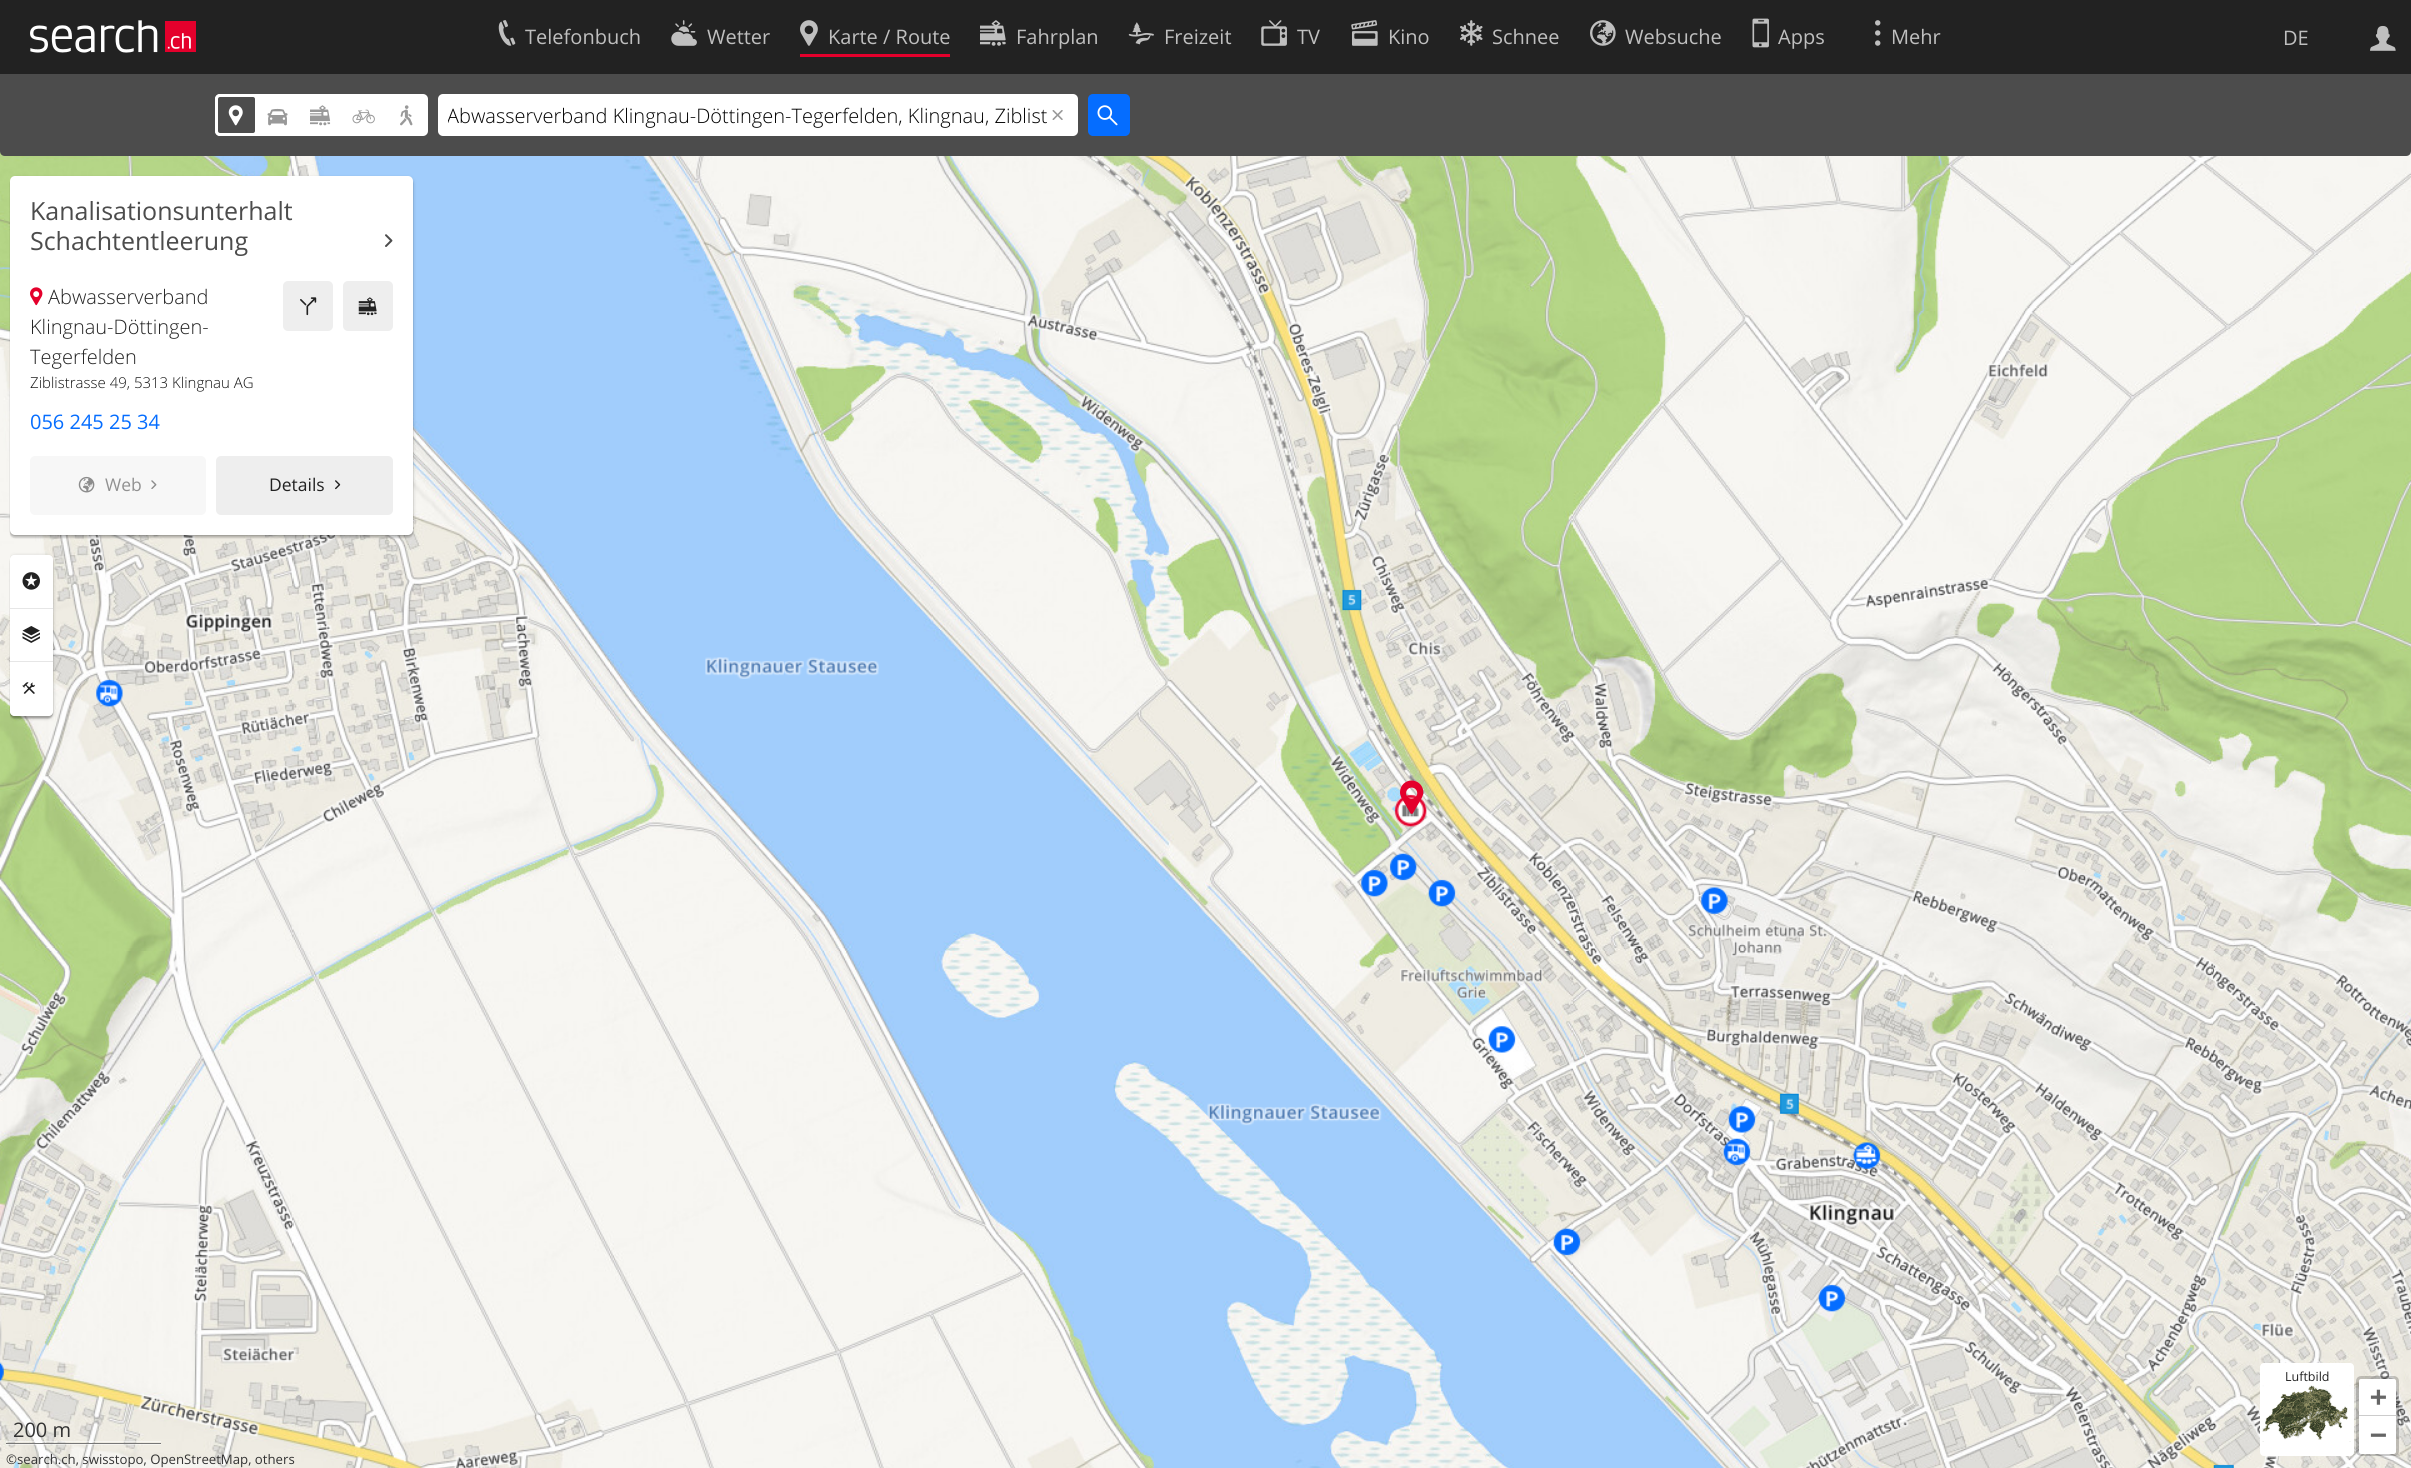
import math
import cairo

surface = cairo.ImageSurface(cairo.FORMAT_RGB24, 2411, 1468)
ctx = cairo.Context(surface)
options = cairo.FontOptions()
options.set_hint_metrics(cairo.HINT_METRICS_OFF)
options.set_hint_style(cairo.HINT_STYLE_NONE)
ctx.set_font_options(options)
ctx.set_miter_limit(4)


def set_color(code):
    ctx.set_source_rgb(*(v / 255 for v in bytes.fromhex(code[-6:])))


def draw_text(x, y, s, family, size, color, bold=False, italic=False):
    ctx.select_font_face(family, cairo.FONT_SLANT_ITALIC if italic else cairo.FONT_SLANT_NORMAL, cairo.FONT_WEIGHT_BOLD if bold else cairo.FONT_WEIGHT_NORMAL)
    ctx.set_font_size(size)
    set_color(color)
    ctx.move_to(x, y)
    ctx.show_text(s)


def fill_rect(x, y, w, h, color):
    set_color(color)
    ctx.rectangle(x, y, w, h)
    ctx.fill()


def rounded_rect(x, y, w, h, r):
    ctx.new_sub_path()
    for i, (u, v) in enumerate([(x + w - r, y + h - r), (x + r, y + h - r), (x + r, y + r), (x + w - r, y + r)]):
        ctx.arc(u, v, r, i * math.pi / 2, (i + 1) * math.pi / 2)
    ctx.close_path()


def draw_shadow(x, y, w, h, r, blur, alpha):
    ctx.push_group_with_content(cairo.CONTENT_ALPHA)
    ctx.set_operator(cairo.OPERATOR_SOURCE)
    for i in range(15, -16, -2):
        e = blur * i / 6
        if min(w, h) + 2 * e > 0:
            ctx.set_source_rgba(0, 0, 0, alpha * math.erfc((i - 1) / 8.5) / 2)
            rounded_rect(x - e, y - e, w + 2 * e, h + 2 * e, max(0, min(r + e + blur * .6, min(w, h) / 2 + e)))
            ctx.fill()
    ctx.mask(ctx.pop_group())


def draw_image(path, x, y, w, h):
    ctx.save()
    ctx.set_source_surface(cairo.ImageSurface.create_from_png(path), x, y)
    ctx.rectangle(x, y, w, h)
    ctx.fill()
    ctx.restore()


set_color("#ffffff")
ctx.paint()
fill_rect(0, 0, 2411, 74, "#222222")
draw_image("assets/img1.png", 30, 20, 166, 33)
draw_image("assets/img2.png", 498, 20, 18, 26)
draw_text(525, 44, "Telefonbuch", "Open Sans", 20, "#bfbfbf")
draw_image("assets/img3.png", 671, 20, 26, 26)
draw_text(707, 44, "Wetter", "Open Sans", 20, "#bfbfbf")
fill_rect(800, 54, 150, 3, "#e4002c")
draw_image("assets/img4.png", 800, 20, 18, 26)
draw_text(828, 44, "Karte / Route", "Open Sans", 20, "#bfbfbf")
draw_image("assets/img5.png", 980, 20, 26, 26)
draw_text(1016, 44, "Fahrplan", "Open Sans", 20, "#bfbfbf")
draw_image("assets/img6.png", 1128, 22, 26, 23)
draw_text(1164, 44, "Freizeit", "Open Sans", 20, "#bfbfbf")
draw_image("assets/img7.png", 1261, 20, 26, 26)
draw_text(1297, 44, "TV", "Open Sans", 20, "#bfbfbf")
draw_image("assets/img8.png", 1351, 20, 27, 26)
draw_text(1388, 44, "Kino", "Open Sans", 20, "#bfbfbf")
draw_image("assets/img9.png", 1460, 20, 23, 26)
draw_text(1492, 44, "Schnee", "Open Sans", 20, "#bfbfbf")
draw_image("assets/img10.png", 1590, 20, 26, 26)
draw_text(1625, 44, "Websuche", "Open Sans", 20, "#bfbfbf")
draw_image("assets/img11.png", 1752, 18, 17, 30)
draw_text(1778, 44, "Apps", "Open Sans", 20, "#bfbfbf")
draw_image("assets/img12.png", 1875, 20, 6, 26)
draw_text(1891, 44, "Mehr", "Open Sans", 20, "#bfbfbf")
draw_text(2283, 45, "DE", "Open Sans", 20, "#bfbfbf")
draw_image("assets/img13.png", 2370, 25, 26, 26)
draw_image("assets/img32.png", 0, 151, 614, 160)
draw_image("assets/img35.png", 1894, 151, 517, 160)
set_color("#4c4c4c")
ctx.new_path()
ctx.move_to(0, 74)
ctx.line_to(2411, 74)
ctx.line_to(2411, 151)
ctx.curve_to(2411, 154, 2409, 156, 2406, 156)
ctx.line_to(5, 156)
ctx.curve_to(2, 156, 0, 154, 0, 151)
ctx.close_path()
ctx.fill()
set_color("#ffffff")
rounded_rect(215, 94, 213, 42, 5)
ctx.fill()
set_color("#4c4c4c")
rounded_rect(216.5, 95.5, 40, 39, 3.5)
ctx.fill_preserve()
set_color("#ffffff")
ctx.set_line_width(3)
ctx.stroke()
draw_image("assets/img14.png", 228, 105, 15, 21)
draw_image("assets/img15.png", 267, 108, 21, 18)
draw_image("assets/img16.png", 310, 105, 21, 21)
draw_image("assets/img17.png", 352, 109, 23, 15)
draw_image("assets/img18.png", 400, 105, 13, 21)
rounded_rect(438, 94, 640, 42, 5)
ctx.fill()
ctx.save()
ctx.rectangle(448, 101, 600, 28)
ctx.clip()
draw_text(447, 123, "Abwasserverband Klingnau-Döttingen-Tegerfelden, Klingnau, Ziblist", "Open Sans Light", 20, "#000000")
ctx.restore()
draw_image("assets/img19.png", 1052, 110, 11, 10)
set_color("#056dff")
rounded_rect(1088, 94, 42, 42, 5)
ctx.fill()
draw_image("assets/img20.png", 1097, 105, 21, 21)
draw_image("assets/img36.png", 0, 311, 614, 640)
draw_image("assets/img46.png", 86, 535, 447, 289)
ctx.save()
ctx.rectangle(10, 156, 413, 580)
ctx.clip()
set_color("#000000")
draw_shadow(10, 178, 403, 358, 5, 2, 0.2)
ctx.restore()
set_color("#000000")
draw_shadow(10, 179, 403, 359, 5, 0.5, 0.12)
draw_shadow(10, 178, 403, 358, 5, 0.5, 0.14)
set_color("#ffffff")
rounded_rect(10, 176, 403, 359, 5)
ctx.fill()
draw_text(30, 220, "Kanalisationsunterhalt", "Open Sans", 25, "#4c4c4c")
draw_text(30, 250, "Schachtentleerung", "Open Sans", 25, "#4c4c4c")
draw_image("assets/img21.png", 385, 234, 8, 13)
draw_image("assets/img22.png", 30, 287, 13, 19)
draw_text(48, 304, "Abwasserverband", "Open Sans Light", 20, "#222222")
draw_text(30, 334, "Klingnau-Döttingen-", "Open Sans Light", 20, "#222222")
draw_text(30, 364, "Tegerfelden", "Open Sans Light", 20, "#222222")
set_color("#eeeeee")
rounded_rect(283, 281, 50, 50, 5)
ctx.fill()
draw_image("assets/img23.png", 300, 297, 17, 19)
rounded_rect(343, 281, 50, 50, 5)
ctx.fill()
draw_image("assets/img24.png", 358, 297, 19, 19)
draw_text(30, 388, "Ziblistrasse 49, 5313 Klingnau AG", "Open Sans Light", 15, "#111111")
draw_text(30, 429, "056 245 25 34", "Open Sans", 20, "#056dff")
set_color("#f7f7f7")
rounded_rect(30, 456, 176, 59, 5)
ctx.fill()
draw_image("assets/img25.png", 78, 476, 17, 17)
draw_text(105, 491, "Web", "Open Sans", 17.5, "#919191")
draw_image("assets/img26.png", 151, 480, 6, 9)
set_color("#eeeeee")
rounded_rect(216, 456, 177, 59, 5)
ctx.fill()
draw_text(269, 491, "Details", "Open Sans", 17.5, "#222222")
draw_image("assets/img27.png", 335, 480, 6, 10)
ctx.save()
ctx.rectangle(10, 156, 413, 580)
ctx.clip()
set_color("#000000")
draw_shadow(10, 556, 43, 162, 5, 2, 0.2)
ctx.restore()
set_color("#000000")
draw_shadow(10, 558, 43, 161, 5, 0.5, 0.12)
draw_shadow(10, 556, 43, 162, 5, 0.5, 0.14)
set_color("#ffffff")
rounded_rect(10, 555, 43, 161, 5)
ctx.fill()
ctx.save()
rounded_rect(10, 555, 43, 161, 4)
ctx.clip()
ctx.new_path()
ctx.move_to(15, 555)
ctx.line_to(48, 555)
ctx.curve_to(51, 555, 53, 557, 53, 560)
ctx.line_to(53, 609)
ctx.line_to(10, 609)
ctx.line_to(10, 560)
ctx.curve_to(10, 557, 12, 555, 15, 555)
ctx.close_path()
ctx.fill()
ctx.restore()
fill_rect(10, 608, 43, 1, "#e6e6e6")
draw_image("assets/img28.png", 22, 572, 18, 18)
fill_rect(10, 661, 43, 1, "#e6e6e6")
draw_image("assets/img29.png", 22, 626, 18, 17)
ctx.save()
rounded_rect(10, 555, 43, 161, 4)
ctx.clip()
set_color("#ffffff")
ctx.new_path()
ctx.move_to(10, 663)
ctx.line_to(53, 663)
ctx.line_to(53, 711)
ctx.curve_to(53, 714, 51, 716, 48, 716)
ctx.line_to(15, 716)
ctx.curve_to(12, 716, 10, 714, 10, 711)
ctx.close_path()
ctx.fill()
ctx.restore()
draw_image("assets/img30.png", 22, 682, 13, 12)
draw_image("assets/img43.png", 1894, 951, 517, 517)
draw_image("assets/img53.png", 1894, 955, 517, 513)
set_color("#ffffff")
rounded_rect(2260, 1363, 94, 93, 4)
ctx.fill()
draw_image("assets/img31.png", 2262, 1385, 89, 57)
draw_text(2285, 1381, "Luftbild", "Open Sans", 12.5, "#222222")
draw_image("assets/img33.png", 614, 156, 640, 155)
draw_image("assets/img34.png", 1254, 156, 640, 155)
draw_image("assets/img37.png", 614, 311, 640, 640)
draw_image("assets/img38.png", 1254, 311, 640, 640)
draw_image("assets/img39.png", 1894, 311, 517, 640)
draw_image("assets/img40.png", 0, 951, 614, 517)
draw_image("assets/img41.png", 614, 951, 640, 517)
draw_image("assets/img42.png", 1254, 951, 640, 517)
draw_image("assets/img44.png", 1181, 172, 73, 110)
draw_image("assets/img45.png", 1254, 255, 18, 42)
draw_image("assets/img47.png", 705, 312, 442, 367)
draw_image("assets/img48.png", 1286, 321, 608, 630)
draw_image("assets/img49.png", 1894, 362, 263, 582)
draw_image("assets/img50.png", 0, 988, 520, 480)
draw_image("assets/img51.png", 1207, 1103, 47, 23)
draw_image("assets/img52.png", 1254, 951, 640, 517)
draw_image("assets/img54.png", 1400, 780, 24, 34)
rounded_rect(2357.5, 1377.5, 40, 77, 3.5)
ctx.set_source_rgba(0, 0, 0, 0.2)
ctx.stroke()
set_color("#ffffff")
ctx.new_path()
ctx.move_to(2361.5, 1379)
ctx.line_to(2393.5, 1379)
ctx.curve_to(2395, 1379, 2396, 1380, 2396, 1381.5)
ctx.line_to(2396, 1416)
ctx.line_to(2359, 1416)
ctx.line_to(2359, 1381.5)
ctx.curve_to(2359, 1380, 2360, 1379, 2361.5, 1379)
ctx.close_path()
ctx.fill()
fill_rect(2359, 1415, 37, 1, "#cccccc")
draw_text(2370, 1406, "+", "DejaVu Sans Mono", 28, "#666666", bold=True)
set_color("#ffffff")
ctx.new_path()
ctx.move_to(2359, 1416)
ctx.line_to(2396, 1416)
ctx.line_to(2396, 1451.5)
ctx.curve_to(2396, 1453, 2395, 1454, 2393.5, 1454)
ctx.line_to(2361.5, 1454)
ctx.curve_to(2360, 1454, 2359, 1453, 2359, 1451.5)
ctx.close_path()
ctx.fill()
draw_text(2370, 1444, "−", "DejaVu Sans Mono", 28, "#666666", bold=True)
ctx.set_source_rgba(1, 1, 1, 0.5)
ctx.new_path()
ctx.move_to(6, 1419)
ctx.line_to(6, 1445)
ctx.line_to(161, 1445)
ctx.line_to(161, 1444)
ctx.line_to(6, 1444)
ctx.close_path()
ctx.fill()
ctx.rectangle(6, 1441, 155, 1)
ctx.fill()
fill_rect(6, 1443, 155, 1, "#777777")
draw_text(13, 1437, "200 m", "Open Sans", 20, "#333333")
draw_text(6, 1464, "©search.ch, swisstopo, OpenStreetMap, others", "Open Sans", 13.2, "#333333")
surface.write_to_png("output.png")
